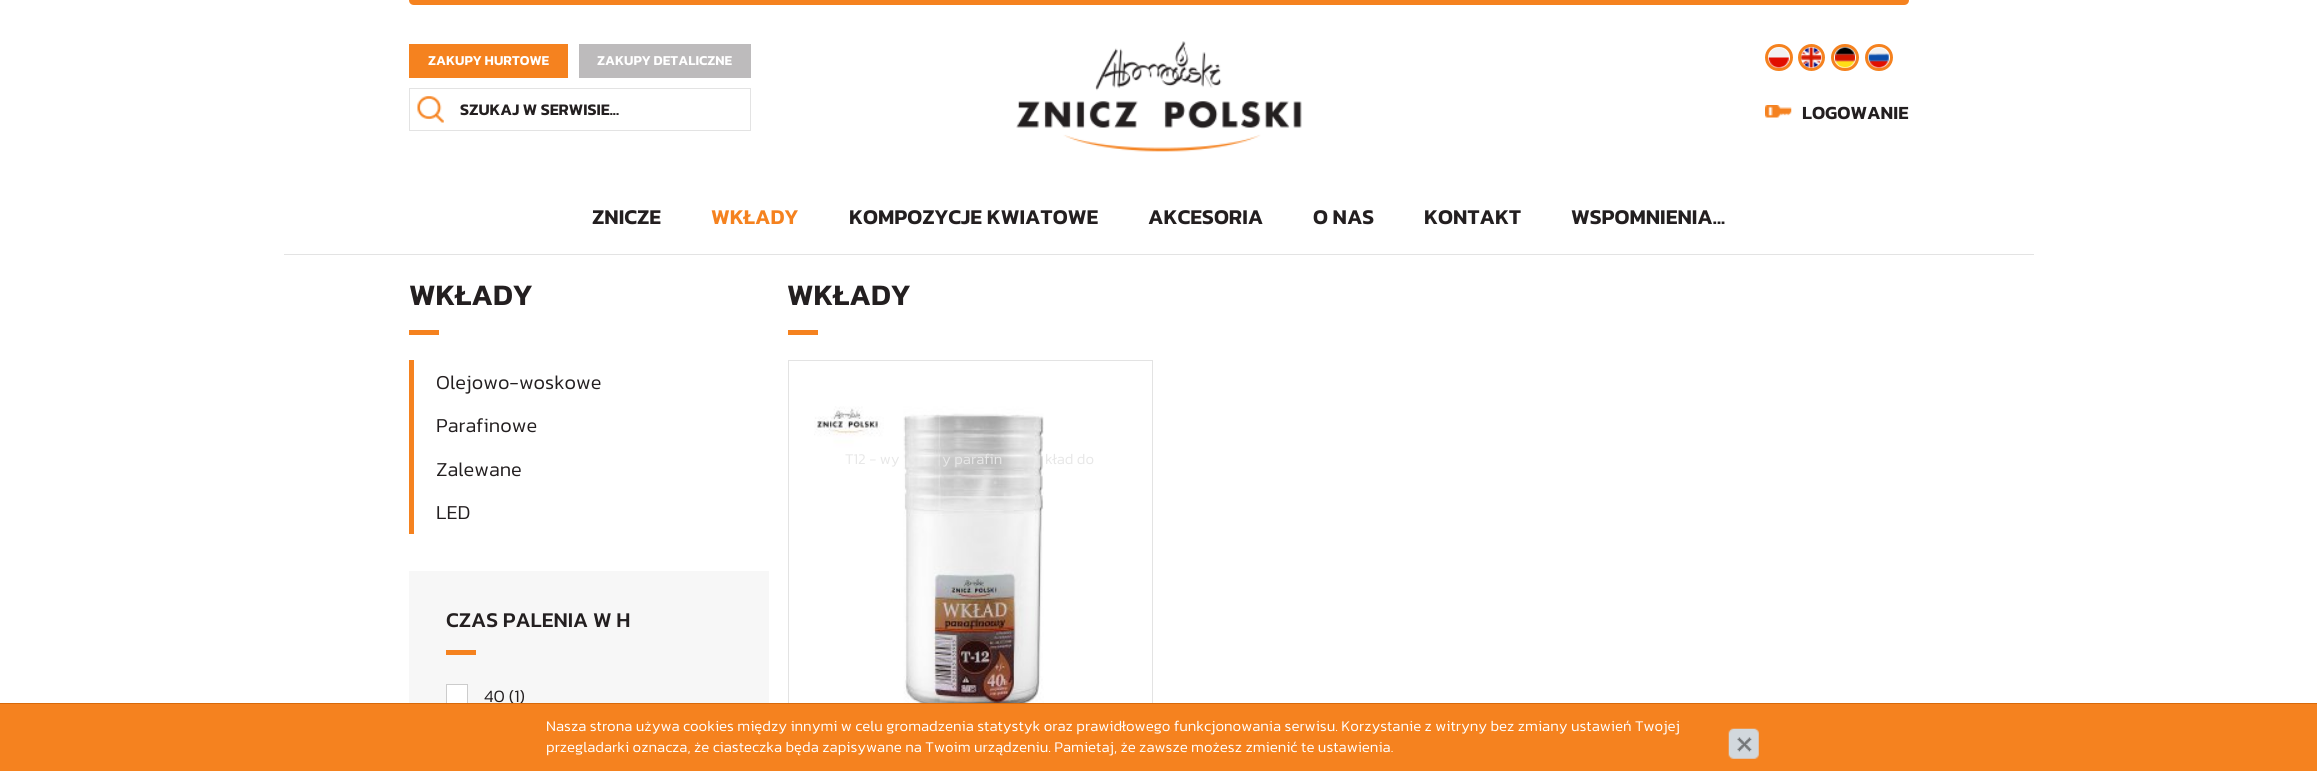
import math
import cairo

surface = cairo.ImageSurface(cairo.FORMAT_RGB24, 2317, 771)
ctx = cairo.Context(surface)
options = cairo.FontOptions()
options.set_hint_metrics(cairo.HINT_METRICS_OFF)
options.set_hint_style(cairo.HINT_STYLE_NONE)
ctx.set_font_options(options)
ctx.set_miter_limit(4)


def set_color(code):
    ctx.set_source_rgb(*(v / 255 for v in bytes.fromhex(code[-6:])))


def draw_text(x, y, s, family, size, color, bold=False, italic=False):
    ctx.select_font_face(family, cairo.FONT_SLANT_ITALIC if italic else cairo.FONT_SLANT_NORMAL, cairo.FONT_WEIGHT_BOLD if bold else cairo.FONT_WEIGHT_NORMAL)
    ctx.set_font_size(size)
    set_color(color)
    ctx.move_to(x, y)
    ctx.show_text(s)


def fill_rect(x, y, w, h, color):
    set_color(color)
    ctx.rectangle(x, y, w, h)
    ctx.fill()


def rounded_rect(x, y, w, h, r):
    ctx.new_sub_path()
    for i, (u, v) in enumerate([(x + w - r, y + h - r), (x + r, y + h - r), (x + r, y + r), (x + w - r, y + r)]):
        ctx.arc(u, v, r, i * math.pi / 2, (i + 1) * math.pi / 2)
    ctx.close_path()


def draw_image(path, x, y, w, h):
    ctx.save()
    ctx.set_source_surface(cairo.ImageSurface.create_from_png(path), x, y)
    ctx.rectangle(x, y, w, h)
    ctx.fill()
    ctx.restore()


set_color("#ffffff")
ctx.paint()
fill_rect(284, 254, 1750, 1, "#e3e3e3")
set_color("#f5821f")
ctx.new_path()
ctx.move_to(409, 0)
ctx.line_to(1909, 0)
ctx.curve_to(1909, 3, 1907, 5, 1904, 5)
ctx.line_to(414, 5)
ctx.curve_to(411, 5, 409, 3, 409, 0)
ctx.close_path()
ctx.fill()
fill_rect(409, 44, 159, 34, "#f5821f")
draw_text(428, 65, "ZAKUPY HURTOWE", "Kanit SemiBold", 13.75, "#ffffff")
fill_rect(579, 44, 172, 34, "#bdbbbc")
draw_text(597, 65, "ZAKUPY DETALICZNE", "Kanit SemiBold", 13.75, "#ffffff")
draw_image("assets/img1.png", 1016, 41, 286, 111)
ctx.rectangle(409.5, 88.5, 341, 42)
set_color("#e3e3e3")
ctx.set_line_width(1)
ctx.stroke()
draw_image("assets/img2.png", 417, 96, 27, 27)
draw_text(460, 115, "SZUKAJ W SERWISIE...", "Kanit SemiBold", 16.25, "#231f20")
draw_image("assets/img3.png", 1768, 47, 21, 21)
rounded_rect(1766.5, 45.5, 25, 24, 12)
set_color("#f5821f")
ctx.set_line_width(3)
ctx.stroke()
draw_image("assets/img4.png", 1801, 47, 21, 21)
ctx.arc(1811.5, 57.5, 12, 0, 2 * math.pi)
ctx.stroke()
draw_image("assets/img5.png", 1835, 47, 20, 21)
rounded_rect(1832.5, 45.5, 25, 24, 12)
ctx.stroke()
draw_image("assets/img6.png", 1868, 47, 21, 21)
rounded_rect(1866.5, 45.5, 25, 24, 12)
ctx.stroke()
draw_image("assets/img7.png", 1765, 105, 27, 13)
draw_text(1802, 119, "LOGOWANIE", "Kanit SemiBold", 18.75, "#231f20")
draw_text(592, 224, "ZNICZE", "Kanit SemiBold", 21.25, "#231f20")
draw_text(711, 224, "WKŁADY", "Kanit SemiBold", 21.25, "#f5821f")
draw_text(849, 224, "KOMPOZYCJE KWIATOWE", "Kanit SemiBold", 21.25, "#231f20")
draw_text(1148, 224, "AKCESORIA", "Kanit SemiBold", 21.25, "#231f20")
draw_text(1313, 224, "O NAS", "Kanit SemiBold", 21.25, "#231f20")
draw_text(1424, 224, "KONTAKT", "Kanit SemiBold", 21.25, "#231f20")
draw_text(1571, 224, "WSPOMNIENIA...", "Kanit SemiBold", 21.25, "#231f20")
draw_text(409, 305, "WKŁADY", "Kanit SemiBold", 30, "#231f20")
fill_rect(409, 330, 30, 5, "#f5821f")
fill_rect(409, 360, 5, 174, "#f5821f")
draw_text(436, 389, "Olejowo-woskowe", "Kanit Light", 20, "#231f20")
draw_text(436, 432, "Parafinowe", "Kanit Light", 20, "#231f20")
draw_text(436, 476, "Zalewane", "Kanit Light", 20, "#231f20")
draw_text(436, 519, "LED", "Kanit Light", 20, "#231f20")
fill_rect(409, 571, 360, 132, "#f7f7f7")
draw_text(446, 627, "CZAS PALENIA W H", "Kanit Medium", 21.25, "#231f20")
fill_rect(446, 650, 30, 5, "#f5821f")
fill_rect(447, 685, 20, 18, "#ffffff")
ctx.rectangle(446.5, 684.5, 21, 20)
set_color("#cccccc")
ctx.set_line_width(1)
ctx.stroke()
draw_text(484, 702, "40 (1)", "Kanit Light", 17.5, "#231f20")
draw_text(787, 305, "WKŁADY", "Kanit SemiBold", 30, "#231f20")
fill_rect(788, 330, 30, 5, "#f5821f")
ctx.rectangle(788.5, 360.5, 364, 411)
set_color("#e3e3e3")
ctx.stroke()
draw_image("assets/img8.png", 814, 406, 230, 297)
draw_text(845, 464, "T12 - wy", "Kanit Light", 15, "#e7e7e7")
draw_text(942, 464, "y parafin", "Kanit Light", 15, "#e7e7e7")
draw_text(1045, 464, "kład do", "Kanit Light", 15, "#e7e7e7")
fill_rect(0, 704, 2317, 67, "#f5821f")
fill_rect(0, 703, 2317, 1, "#d7690a")
draw_text(546, 731, "Nasza strona używa cookies między innymi w celu gromadzenia statystyk oraz prawidłowego funkcjonowania serwisu. Korzystanie z witryny bez zmiany ustawień Twojej", "Kanit Light", 15, "#ffffff")
draw_image("assets/img9.png", 1728, 728, 31, 31)
draw_text(546, 752, "przegladarki oznacza, że ciasteczka będa zapisywane na Twoim urządzeniu. Pamietaj, że zawsze możesz zmienić te ustawienia.", "Kanit Light", 15, "#ffffff")
surface.write_to_png("output.png")
